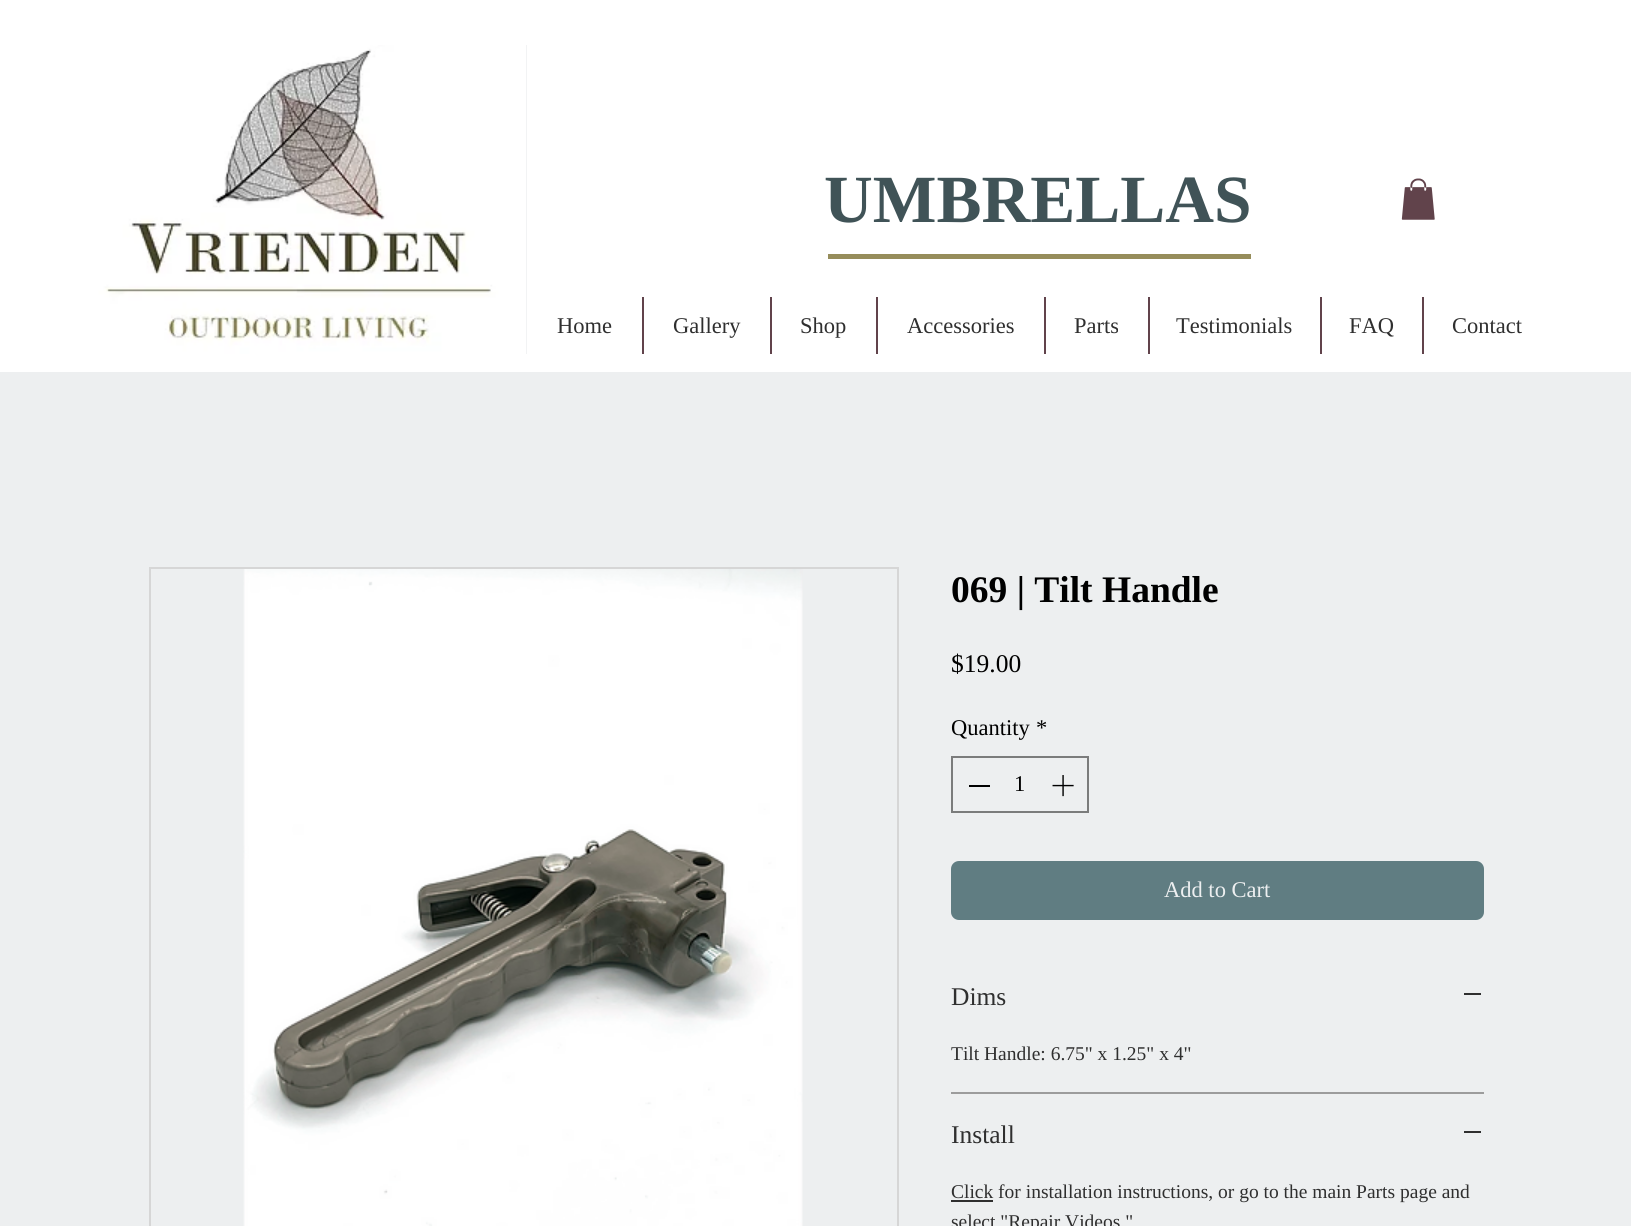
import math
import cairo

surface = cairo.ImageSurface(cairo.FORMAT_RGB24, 1631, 1226)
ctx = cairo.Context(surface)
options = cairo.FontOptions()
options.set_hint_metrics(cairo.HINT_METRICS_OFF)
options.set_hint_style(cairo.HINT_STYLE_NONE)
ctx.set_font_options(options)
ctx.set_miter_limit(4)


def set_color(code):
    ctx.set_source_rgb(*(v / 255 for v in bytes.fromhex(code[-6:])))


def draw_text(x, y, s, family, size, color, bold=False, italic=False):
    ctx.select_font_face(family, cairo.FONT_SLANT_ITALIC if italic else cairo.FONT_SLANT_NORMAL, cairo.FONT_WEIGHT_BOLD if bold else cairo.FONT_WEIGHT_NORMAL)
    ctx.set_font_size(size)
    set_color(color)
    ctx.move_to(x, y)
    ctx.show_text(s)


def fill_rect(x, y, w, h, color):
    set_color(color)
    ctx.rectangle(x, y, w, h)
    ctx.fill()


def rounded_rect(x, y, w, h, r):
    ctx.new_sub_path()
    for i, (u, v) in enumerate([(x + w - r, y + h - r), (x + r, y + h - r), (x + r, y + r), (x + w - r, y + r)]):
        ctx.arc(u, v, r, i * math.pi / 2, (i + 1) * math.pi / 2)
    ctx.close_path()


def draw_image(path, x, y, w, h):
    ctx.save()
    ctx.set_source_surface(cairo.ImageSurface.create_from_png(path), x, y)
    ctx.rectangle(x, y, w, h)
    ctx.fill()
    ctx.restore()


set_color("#edeff0")
ctx.paint()
fill_rect(0, 0, 1631, 372, "#ffffff")
fill_rect(526, 45, 1, 309, "#edeff0")
draw_image("assets/img1.png", 81, 45, 446, 309)
draw_text(824, 222, "UMBRELLAS", "Liberation Serif", 67.5, "#405357", bold=True)
draw_image("assets/img2.png", 1401, 178, 34, 42)
fill_rect(828, 254, 423, 5, "#968d5b")
draw_text(557, 333, "Home", "Liberation Serif", 22.5, "#2f2f2f")
fill_rect(642, 297, 2, 57, "#61434b")
draw_text(673, 333, "Gallery", "Liberation Serif", 22.5, "#2f2f2f")
fill_rect(770, 297, 2, 57, "#61434b")
draw_text(800, 333, "Shop", "Liberation Serif", 22.5, "#2f2f2f")
fill_rect(876, 297, 2, 57, "#61434b")
draw_text(907, 333, "Accessories", "Liberation Serif", 22.5, "#2f2f2f")
fill_rect(1044, 297, 2, 57, "#61434b")
draw_text(1074, 333, "Parts", "Liberation Serif", 22.5, "#2f2f2f")
fill_rect(1148, 297, 2, 57, "#61434b")
draw_text(1176, 333, "Testimonials", "Liberation Serif", 22.5, "#2f2f2f")
fill_rect(1320, 297, 2, 57, "#61434b")
draw_text(1349, 333, "FAQ", "Liberation Serif", 22.5, "#2f2f2f")
fill_rect(1422, 297, 2, 57, "#61434b")
draw_text(1452, 333, "Contact", "Liberation Serif", 22.5, "#2f2f2f")
ctx.rectangle(150, 568, 748, 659)
set_color("#d6d6d6")
ctx.stroke()
draw_image("assets/img3.png", 243, 569, 560, 657)
draw_text(951, 602, "069 | Tilt Handle", "Liberation Serif", 37.5, "#000000", bold=True)
draw_text(951, 672, "$19.00", "Liberation Serif", 25.5, "#000000")
draw_text(951, 735, "Quantity", "Liberation Serif", 22.5, "#000000")
draw_text(1036, 735, "*", "Liberation Serif", 22.5, "#000000")
ctx.rectangle(952, 757, 136, 55)
set_color("#7b7c7c")
ctx.stroke()
fill_rect(969, 785, 21, 2, "#000000")
draw_text(1014, 791, "1", "Liberation Serif", 22.5, "#000000")
draw_image("assets/img4.png", 1052, 775, 22, 22)
set_color("#607d82")
rounded_rect(951, 861, 533, 59, 8)
ctx.fill()
draw_text(1164, 897, "Add to Cart", "Liberation Serif", 22.5, "#edeff0")
fill_rect(951, 1092, 533, 2, "#9c9c9c")
draw_text(951, 1005, "Dims", "Liberation Serif", 25.5, "#2f2f2f")
fill_rect(1464, 993, 17, 2, "#2f2f2f")
draw_text(951, 1060, "Tilt Handle: 6.75\" x 1.25\" x 4\"", "Liberation Serif", 19.5, "#2f2f2f")
draw_text(951, 1143, "Install", "Liberation Serif", 25.5, "#2f2f2f")
fill_rect(1464, 1131, 17, 2, "#2f2f2f")
fill_rect(951, 1200, 42, 2, "#2f2f2f")
draw_text(951, 1198, "Click for installation instructions, or go to the main Parts page and", "Liberation Serif", 19.5, "#2f2f2f")
draw_text(951, 1228, "select \"Repair Videos.\"", "Liberation Serif", 19.5, "#2f2f2f")
surface.write_to_png("output.png")
